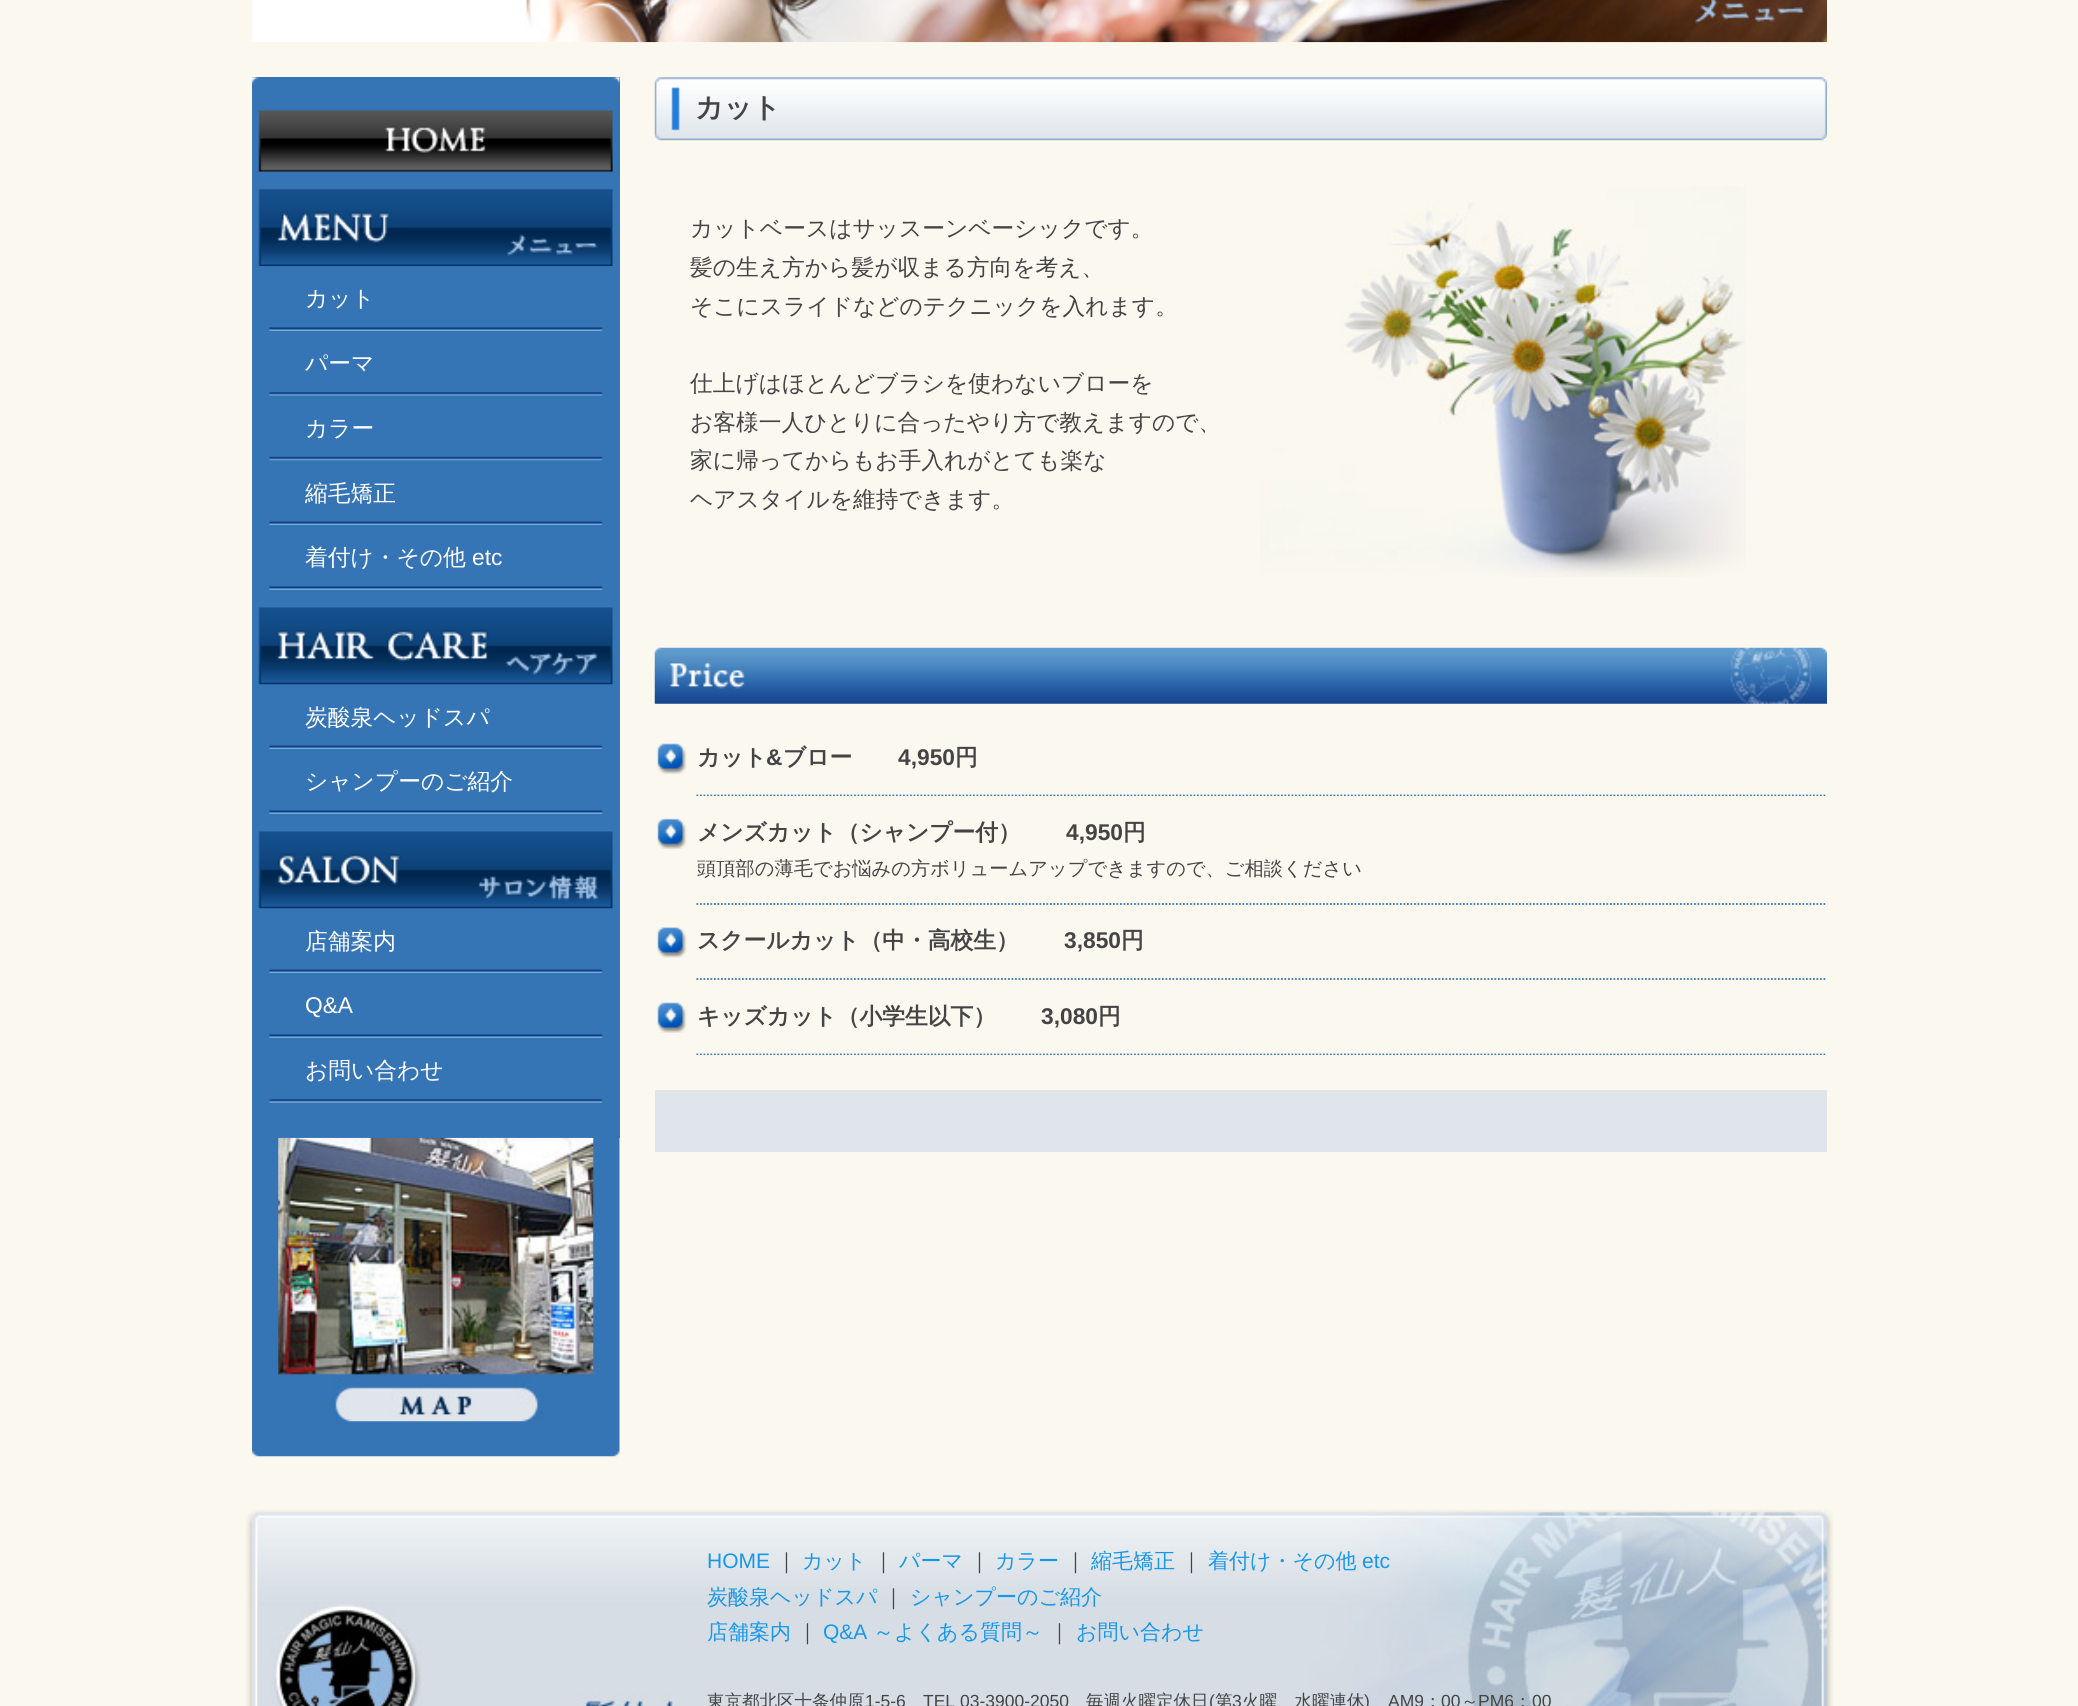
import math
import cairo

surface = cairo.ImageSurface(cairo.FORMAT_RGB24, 2078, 1706)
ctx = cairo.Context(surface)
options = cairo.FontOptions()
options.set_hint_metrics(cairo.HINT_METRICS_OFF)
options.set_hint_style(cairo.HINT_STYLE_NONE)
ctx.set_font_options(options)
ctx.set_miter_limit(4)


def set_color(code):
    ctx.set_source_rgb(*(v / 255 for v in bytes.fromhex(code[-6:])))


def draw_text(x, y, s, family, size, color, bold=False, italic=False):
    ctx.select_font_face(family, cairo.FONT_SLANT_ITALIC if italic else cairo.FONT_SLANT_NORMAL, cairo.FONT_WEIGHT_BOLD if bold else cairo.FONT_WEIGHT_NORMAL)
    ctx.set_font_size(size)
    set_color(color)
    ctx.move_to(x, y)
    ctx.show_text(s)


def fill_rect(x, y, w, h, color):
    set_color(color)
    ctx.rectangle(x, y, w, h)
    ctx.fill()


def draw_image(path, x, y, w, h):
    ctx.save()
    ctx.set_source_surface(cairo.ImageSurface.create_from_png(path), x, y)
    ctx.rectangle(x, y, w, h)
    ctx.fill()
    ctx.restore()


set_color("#fbf8ef")
ctx.paint()
draw_image("assets/img1.png", 252, 0, 1575, 43)
fill_rect(252, 77, 368, 1061, "#3574b5")
draw_image("assets/img2.png", 252, 77, 368, 95)
draw_image("assets/img3.png", 258, 171, 355, 96)
draw_image("assets/img4.png", 259, 266, 354, 65)
draw_text(305, 306, "カット", "WenQuanYi Zen Hei Medium", 22.75, "#ffffff")
draw_image("assets/img5.png", 269, 392, 334, 4)
draw_text(305, 371, "パーマ", "WenQuanYi Zen Hei Medium", 22.75, "#ffffff")
draw_image("assets/img6.png", 269, 395, 334, 66)
draw_text(305, 436, "カラー", "WenQuanYi Zen Hei Medium", 22.75, "#ffffff")
draw_image("assets/img7.png", 269, 460, 334, 66)
draw_text(305, 501, "縮毛矯正", "WenQuanYi Zen Hei Medium", 22.75, "#ffffff")
draw_image("assets/img8.png", 269, 525, 334, 65)
draw_text(305, 565, "着付け・その他", "WenQuanYi Zen Hei Medium", 22.75, "#ffffff")
draw_text(472, 565, "etc", "Liberation Sans", 22.75, "#ffffff")
draw_image("assets/img9.png", 258, 607, 355, 78)
draw_image("assets/img10.png", 258, 684, 355, 66)
draw_text(305, 725, "炭酸泉ヘッドスパ", "WenQuanYi Zen Hei Medium", 22.75, "#ffffff")
draw_image("assets/img8.png", 269, 749, 334, 65)
draw_text(305, 789, "シャンプーのご紹介", "WenQuanYi Zen Hei Medium", 22.75, "#ffffff")
draw_image("assets/img11.png", 258, 831, 355, 78)
draw_image("assets/img10.png", 258, 908, 355, 66)
draw_text(305, 949, "店舗案内", "WenQuanYi Zen Hei Medium", 22.75, "#ffffff")
draw_image("assets/img8.png", 269, 973, 334, 65)
draw_text(305, 1013, "Q&A", "Liberation Sans", 22.75, "#ffffff")
draw_image("assets/img5.png", 269, 1099, 334, 4)
draw_text(305, 1078, "お問い合わせ", "WenQuanYi Zen Hei Medium", 22.75, "#ffffff")
draw_image("assets/img12.png", 252, 1138, 368, 319)
draw_image("assets/img13.png", 278, 1137, 316, 285)
draw_image("assets/img14.png", 654, 77, 1173, 64)
draw_text(695, 117, "カット", "WenQuanYi Zen Hei", 28, "#444444", bold=True)
draw_image("assets/img15.png", 1260, 186, 486, 391)
draw_text(690, 236, "カットベースはサッスーンベーシックです。", "WenQuanYi Zen Hei Medium", 22.75, "#444444")
draw_text(690, 275, "髪の生え方から髪が収まる方向を考え、", "WenQuanYi Zen Hei Medium", 22.75, "#444444")
draw_text(690, 314, "そこにスライドなどのテクニックを入れます。", "WenQuanYi Zen Hei Medium", 22.75, "#444444")
draw_text(690, 391, "仕上げはほとんどブラシを使わないブローを", "WenQuanYi Zen Hei Medium", 22.75, "#444444")
draw_text(690, 430, "お客様一人ひとりに合ったやり方で教えますので、", "WenQuanYi Zen Hei Medium", 22.75, "#444444")
draw_text(690, 468, "家に帰ってからもお手入れがとても楽な", "WenQuanYi Zen Hei Medium", 22.75, "#444444")
draw_text(690, 507, "ヘアスタイルを維持できます。", "WenQuanYi Zen Hei Medium", 22.75, "#444444")
draw_image("assets/img16.png", 654, 647, 1173, 57)
draw_image("assets/img17.png", 657, 743, 30, 31)
ctx.save()
ctx.rectangle(655, 721, 1172, 75)
ctx.clip()
ctx.new_path()
ctx.move_to(696.5, 795.5)
ctx.line_to(1827, 795.5)
set_color("#3574b5")
ctx.set_line_width(1.8)
ctx.set_dash([1.75, 1.75])
ctx.stroke()
ctx.restore()
draw_text(697, 765, "カット", "WenQuanYi Zen Hei", 22.75, "#444444", bold=True)
draw_text(766, 765, "&", "Liberation Sans", 22.75, "#444444", bold=True)
draw_text(783, 765, "ブロー", "WenQuanYi Zen Hei", 22.75, "#444444", bold=True)
draw_text(898, 765, "4,950", "Liberation Sans", 22.75, "#444444", bold=True)
draw_text(955, 765, "円", "WenQuanYi Zen Hei", 22.75, "#444444", bold=True)
draw_image("assets/img18.png", 657, 818, 30, 31)
ctx.new_path()
ctx.move_to(696.5, 904)
ctx.line_to(1827, 904)
set_color("#3574b5")
ctx.set_line_width(1.8)
ctx.set_dash([1.75, 1.75])
ctx.stroke()
draw_text(697, 840, "メンズカット（シャンプー付）", "WenQuanYi Zen Hei", 22.75, "#444444", bold=True)
draw_text(1066, 840, "4,950", "Liberation Sans", 22.75, "#444444", bold=True)
draw_text(1123, 840, "円", "WenQuanYi Zen Hei", 22.75, "#444444", bold=True)
draw_text(697, 875, "頭頂部の薄毛でお悩みの方ボリュームアップできますので、ご相談ください", "WenQuanYi Zen Hei Medium", 19.25, "#444444")
draw_image("assets/img19.png", 657, 927, 30, 31)
ctx.new_path()
ctx.move_to(696.5, 979)
ctx.line_to(1827, 979)
set_color("#3574b5")
ctx.stroke()
draw_text(697, 948, "スクールカット（中・高校生）", "WenQuanYi Zen Hei", 22.75, "#444444", bold=True)
draw_text(1064, 948, "3,850", "Liberation Sans", 22.75, "#444444", bold=True)
draw_text(1121, 948, "円", "WenQuanYi Zen Hei", 22.75, "#444444", bold=True)
draw_image("assets/img17.png", 657, 1002, 30, 31)
ctx.save()
ctx.rectangle(655, 980, 1172, 75)
ctx.clip()
ctx.new_path()
ctx.move_to(696.5, 1054.5)
ctx.line_to(1827, 1054.5)
set_color("#3574b5")
ctx.stroke()
ctx.restore()
draw_text(697, 1024, "キッズカット（小学生以下）", "WenQuanYi Zen Hei", 22.75, "#444444", bold=True)
draw_text(1041, 1024, "3,080", "Liberation Sans", 22.75, "#444444", bold=True)
draw_text(1098, 1024, "円", "WenQuanYi Zen Hei", 22.75, "#444444", bold=True)
fill_rect(655, 1090, 1172, 62, "#dfe5eb")
draw_image("assets/img20.png", 245, 1509, 1588, 197)
draw_image("assets/img21.png", 270, 1604, 405, 102)
draw_text(707, 1568, "HOME", "Liberation Sans", 21, "#1797e9")
draw_text(776, 1568, "｜", "WenQuanYi Zen Hei Medium", 21, "#444444")
draw_text(802, 1568, "カット", "WenQuanYi Zen Hei Medium", 21, "#1797e9")
draw_text(873, 1568, "｜", "WenQuanYi Zen Hei Medium", 21, "#444444")
draw_text(899, 1568, "パーマ", "WenQuanYi Zen Hei Medium", 21, "#1797e9")
draw_text(969, 1568, "｜", "WenQuanYi Zen Hei Medium", 21, "#444444")
draw_text(995, 1568, "カラー", "WenQuanYi Zen Hei Medium", 21, "#1797e9")
draw_text(1065, 1568, "｜", "WenQuanYi Zen Hei Medium", 21, "#444444")
draw_text(1091, 1568, "縮毛矯正", "WenQuanYi Zen Hei Medium", 21, "#1797e9")
draw_text(1181, 1568, "｜", "WenQuanYi Zen Hei Medium", 21, "#444444")
draw_text(1208, 1568, "着付け・その他", "WenQuanYi Zen Hei Medium", 21, "#1797e9")
draw_text(1362, 1568, "etc", "Liberation Sans", 21, "#1797e9")
draw_text(707, 1604, "炭酸泉ヘッドスパ", "WenQuanYi Zen Hei Medium", 21, "#1797e9")
draw_text(883, 1604, "｜", "WenQuanYi Zen Hei Medium", 21, "#444444")
draw_text(910, 1604, "シャンプーのご紹介", "WenQuanYi Zen Hei Medium", 21, "#1797e9")
draw_text(707, 1639, "店舗案内", "WenQuanYi Zen Hei Medium", 21, "#1797e9")
draw_text(797, 1639, "｜", "WenQuanYi Zen Hei Medium", 21, "#444444")
draw_text(823, 1639, "Q&A", "Liberation Sans", 21, "#1797e9")
draw_text(873, 1639, "～よくある質問～", "WenQuanYi Zen Hei Medium", 21, "#1797e9")
draw_text(1049, 1639, "｜", "WenQuanYi Zen Hei Medium", 21, "#444444")
draw_text(1076, 1639, "お問い合わせ", "WenQuanYi Zen Hei Medium", 21, "#1797e9")
draw_text(707, 1707, "東京都北区十条仲原", "WenQuanYi Zen Hei Medium", 17.5, "#444444")
draw_text(865, 1707, "1-5-6", "Liberation Sans", 17.5, "#444444")
draw_text(923, 1707, "TEL 03-3900-2050", "Liberation Sans", 17.5, "#444444")
draw_text(1086, 1707, "毎週火曜定休日", "WenQuanYi Zen Hei Medium", 17.5, "#444444")
draw_text(1209, 1707, "(", "Liberation Sans", 17.5, "#444444")
draw_text(1215, 1707, "第", "WenQuanYi Zen Hei Medium", 17.5, "#444444")
draw_text(1232, 1707, "3", "Liberation Sans", 17.5, "#444444")
draw_text(1242, 1707, "火曜、水曜連休", "WenQuanYi Zen Hei Medium", 17.5, "#444444")
draw_text(1364, 1707, ")", "Liberation Sans", 17.5, "#444444")
draw_text(1388, 1707, "AM9", "Liberation Sans", 17.5, "#444444")
draw_text(1424, 1707, "：", "WenQuanYi Zen Hei Medium", 17.5, "#444444")
draw_text(1441, 1707, "00", "Liberation Sans", 17.5, "#444444")
draw_text(1461, 1707, "～", "WenQuanYi Zen Hei Medium", 17.5, "#444444")
draw_text(1478, 1707, "PM6", "Liberation Sans", 17.5, "#444444")
draw_text(1514, 1707, "：", "WenQuanYi Zen Hei Medium", 17.5, "#444444")
draw_text(1532, 1707, "00", "Liberation Sans", 17.5, "#444444")
surface.write_to_png("output.png")
